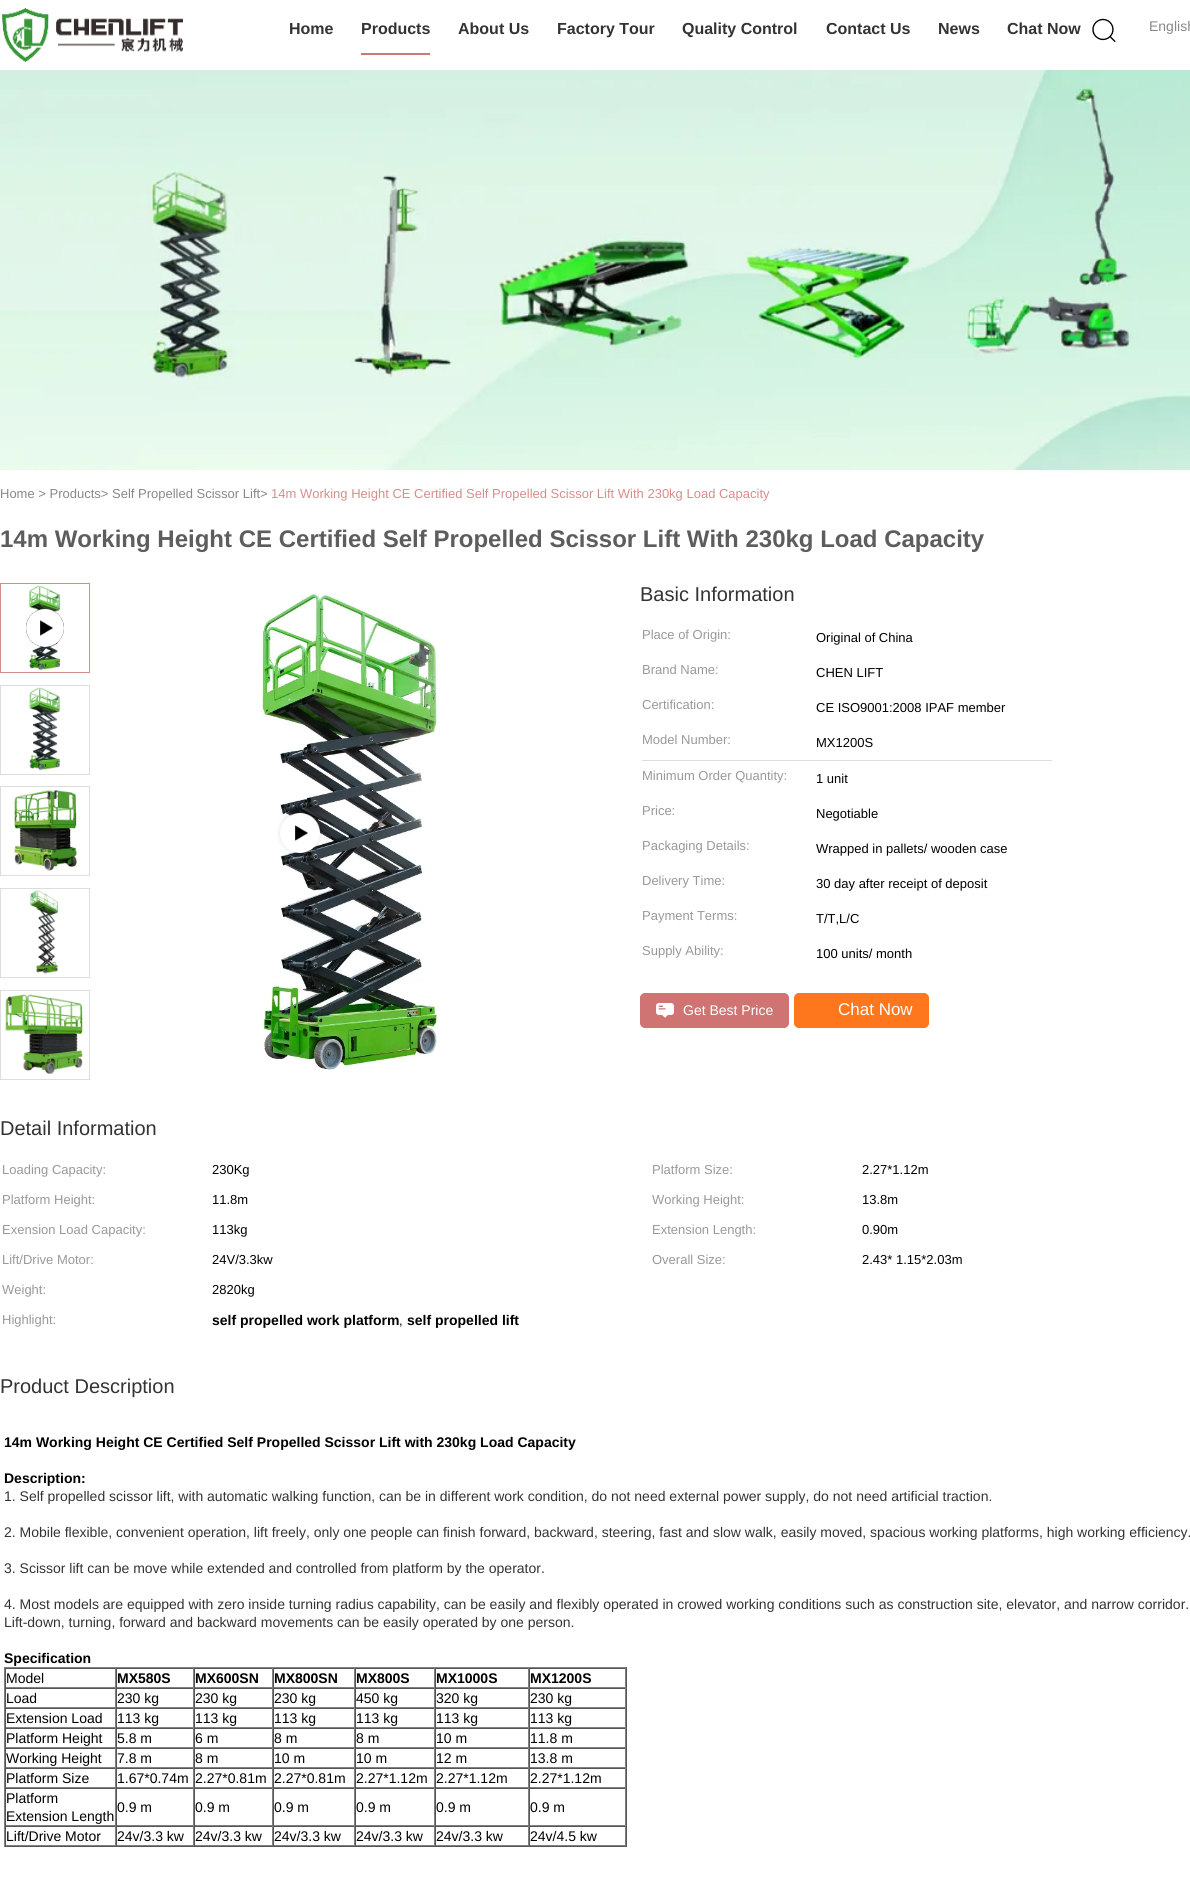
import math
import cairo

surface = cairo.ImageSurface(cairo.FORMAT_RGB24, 1190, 1890)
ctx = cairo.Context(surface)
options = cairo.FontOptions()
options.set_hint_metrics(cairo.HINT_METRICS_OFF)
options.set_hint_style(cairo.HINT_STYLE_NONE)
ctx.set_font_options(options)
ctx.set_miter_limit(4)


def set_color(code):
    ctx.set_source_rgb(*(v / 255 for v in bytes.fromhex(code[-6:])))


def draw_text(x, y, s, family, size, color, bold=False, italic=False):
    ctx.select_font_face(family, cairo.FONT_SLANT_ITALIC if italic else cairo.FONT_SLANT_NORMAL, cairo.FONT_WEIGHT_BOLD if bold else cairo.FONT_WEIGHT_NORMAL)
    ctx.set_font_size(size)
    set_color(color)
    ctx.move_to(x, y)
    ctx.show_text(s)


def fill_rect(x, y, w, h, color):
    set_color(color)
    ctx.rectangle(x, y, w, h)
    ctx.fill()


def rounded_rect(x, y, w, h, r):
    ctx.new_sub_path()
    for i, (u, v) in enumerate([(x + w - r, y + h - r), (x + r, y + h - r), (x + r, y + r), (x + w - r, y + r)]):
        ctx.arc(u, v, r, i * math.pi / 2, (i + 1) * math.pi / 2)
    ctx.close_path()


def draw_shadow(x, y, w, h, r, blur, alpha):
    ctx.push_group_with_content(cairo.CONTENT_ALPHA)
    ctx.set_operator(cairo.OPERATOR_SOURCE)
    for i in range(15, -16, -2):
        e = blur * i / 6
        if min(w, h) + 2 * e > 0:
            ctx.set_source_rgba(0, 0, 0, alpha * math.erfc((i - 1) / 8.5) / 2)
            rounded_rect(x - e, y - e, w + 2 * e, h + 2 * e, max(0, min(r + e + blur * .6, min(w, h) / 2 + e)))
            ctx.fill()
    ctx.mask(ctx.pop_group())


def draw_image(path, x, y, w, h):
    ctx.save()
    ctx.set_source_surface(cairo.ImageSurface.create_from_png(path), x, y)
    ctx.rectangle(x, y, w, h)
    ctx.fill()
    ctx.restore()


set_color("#ffffff")
ctx.paint()
draw_image("assets/img1.png", 2, 8, 181, 54)
draw_text(289, 34, "Home", "Liberation Sans", 16, "#333333", bold=True)
fill_rect(361, 53, 69, 2, "#d17474")
draw_text(361, 34, "Products", "Liberation Sans", 16, "#333333", bold=True)
draw_text(458, 34, "About Us", "Liberation Sans", 16, "#333333", bold=True)
draw_text(557, 34, "Factory Tour", "Liberation Sans", 16, "#333333", bold=True)
draw_text(682, 34, "Quality Control", "Liberation Sans", 16, "#333333", bold=True)
draw_text(826, 34, "Contact Us", "Liberation Sans", 16, "#333333", bold=True)
draw_text(938, 34, "News", "Liberation Sans", 16, "#333333", bold=True)
draw_text(1007, 34, "Chat Now", "Liberation Sans", 16, "#333333", bold=True)
draw_image("assets/img2.png", 1092, 18, 24, 25)
draw_text(1149, 31, "English", "Liberation Sans", 14, "#888888")
draw_image("assets/img3.png", 0, 70, 1190, 400)
draw_text(0, 498, "Home > Products> Self Propelled Scissor Lift>", "Liberation Sans", 13, "#888888")
draw_text(271, 498, "14m Working Height CE Certified Self Propelled Scissor Lift With 230kg Load Capacity", "Liberation Sans", 13, "#d88d8d")
draw_text(0, 547, "14m Working Height CE Certified Self Propelled Scissor Lift With 230kg Load Capacity", "Liberation Sans", 24, "#5d5d5d", bold=True)
ctx.rectangle(0.5, 583.5, 89, 89)
set_color("#d88d8d")
ctx.set_line_width(1)
ctx.stroke()
draw_image("assets/img4.png", 29, 585, 32, 86)
set_color("#000000")
ctx.arc(45, 628, 19, 0, 2 * math.pi)
ctx.fill()
draw_image("assets/img5.png", 26, 609, 38, 38)
ctx.rectangle(0.5, 685.5, 89, 89)
set_color("#dddddd")
ctx.stroke()
draw_image("assets/img6.png", 29, 687, 32, 84)
ctx.rectangle(0.5, 786.5, 89, 89)
ctx.stroke()
draw_image("assets/img7.png", 14, 790, 63, 81)
ctx.rectangle(0.5, 888.5, 89, 89)
ctx.stroke()
draw_image("assets/img8.png", 30, 889, 28, 85)
ctx.rectangle(0.5, 990.5, 89, 89)
ctx.stroke()
draw_image("assets/img9.png", 5, 994, 78, 80)
draw_image("assets/img10.png", 261, 593, 180, 477)
set_color("#000000")
draw_shadow(281, 814, 38, 38, 19, 2.5, 0.2)
set_color("#000000")
ctx.arc(300, 833, 19, 0, 2 * math.pi)
ctx.fill()
draw_image("assets/img11.png", 280, 813, 40, 40)
draw_text(640, 601, "Basic Information", "Liberation Sans", 20, "#333333")
draw_text(642, 639, "Place of Origin:", "Liberation Sans", 13, "#999999")
draw_text(816, 642, "Original of China", "Liberation Sans", 13, "#000000")
draw_text(642, 674, "Brand Name:", "Liberation Sans", 13, "#999999")
draw_text(816, 677, "CHEN LIFT", "Liberation Sans", 13, "#000000")
draw_text(642, 709, "Certification:", "Liberation Sans", 13, "#999999")
draw_text(816, 712, "CE ISO9001:2008 IPAF member", "Liberation Sans", 13, "#000000")
draw_text(642, 744, "Model Number:", "Liberation Sans", 13, "#999999")
draw_text(816, 747, "MX1200S", "Liberation Sans", 13, "#000000")
fill_rect(642, 760, 410, 1, "#dddddd")
draw_text(642, 780, "Minimum Order Quantity:", "Liberation Sans", 13, "#999999")
draw_text(816, 783, "1 unit", "Liberation Sans", 13, "#000000")
draw_text(642, 815, "Price:", "Liberation Sans", 13, "#999999")
draw_text(816, 818, "Negotiable", "Liberation Sans", 13, "#000000")
draw_text(642, 850, "Packaging Details:", "Liberation Sans", 13, "#999999")
draw_text(816, 853, "Wrapped in pallets/ wooden case", "Liberation Sans", 13, "#000000")
draw_text(642, 885, "Delivery Time:", "Liberation Sans", 13, "#999999")
draw_text(816, 888, "30 day after receipt of deposit", "Liberation Sans", 13, "#000000")
draw_text(642, 920, "Payment Terms:", "Liberation Sans", 13, "#999999")
draw_text(816, 923, "T/T,L/C", "Liberation Sans", 13, "#000000")
draw_text(642, 955, "Supply Ability:", "Liberation Sans", 13, "#999999")
draw_text(816, 958, "100 units/ month", "Liberation Sans", 13, "#000000")
set_color("#d07473")
rounded_rect(640.5, 993.5, 148, 34, 4.5)
ctx.fill_preserve()
ctx.stroke()
draw_image("assets/img12.png", 656, 1003, 18, 15)
draw_text(683, 1015, "Get Best Price", "Liberation Sans", 14, "#ffffff")
set_color("#ff771c")
rounded_rect(794.5, 993.5, 134, 34, 4.5)
ctx.fill_preserve()
ctx.stroke()
draw_text(838, 1015, "Chat Now", "Liberation Sans", 17, "#ffffff")
draw_text(0, 1135, "Detail Information", "Liberation Sans", 20, "#333333")
draw_text(2, 1174, "Loading Capacity:", "Liberation Sans", 13, "#999999")
draw_text(212, 1174, "230Kg", "Liberation Sans", 13, "#000000")
draw_text(652, 1174, "Platform Size:", "Liberation Sans", 13, "#999999")
draw_text(862, 1174, "2.27*1.12m", "Liberation Sans", 13, "#000000")
draw_text(2, 1204, "Platform Height:", "Liberation Sans", 13, "#999999")
draw_text(212, 1204, "11.8m", "Liberation Sans", 13, "#000000")
draw_text(652, 1204, "Working Height:", "Liberation Sans", 13, "#999999")
draw_text(862, 1204, "13.8m", "Liberation Sans", 13, "#000000")
draw_text(2, 1234, "Exension Load Capacity:", "Liberation Sans", 13, "#999999")
draw_text(212, 1234, "113kg", "Liberation Sans", 13, "#000000")
draw_text(652, 1234, "Extension Length:", "Liberation Sans", 13, "#999999")
draw_text(862, 1234, "0.90m", "Liberation Sans", 13, "#000000")
draw_text(2, 1264, "Lift/Drive Motor:", "Liberation Sans", 13, "#999999")
draw_text(212, 1264, "24V/3.3kw", "Liberation Sans", 13, "#000000")
draw_text(652, 1264, "Overall Size:", "Liberation Sans", 13, "#999999")
draw_text(862, 1264, "2.43* 1.15*2.03m", "Liberation Sans", 13, "#000000")
draw_text(2, 1294, "Weight:", "Liberation Sans", 13, "#999999")
draw_text(212, 1294, "2820kg", "Liberation Sans", 13, "#000000")
draw_text(2, 1324, "Highlight:", "Liberation Sans", 13, "#999999")
draw_text(212, 1325, "self propelled work platform", "Liberation Sans", 14, "#000000", bold=True)
draw_text(399, 1325, ",", "Liberation Sans", 13, "#000000")
draw_text(407, 1325, "self propelled lift", "Liberation Sans", 14, "#000000", bold=True)
draw_text(0, 1393, "Product Description", "Liberation Sans", 20, "#333333")
draw_text(4, 1447, "14m Working Height CE Certified Self Propelled Scissor Lift with 230kg Load Capacity", "Liberation Sans", 14, "#000000", bold=True)
draw_text(4, 1483, "Description:", "Liberation Sans", 14, "#000000", bold=True)
draw_text(4, 1501, "1. Self propelled scissor lift, with automatic walking function, can be in different work condition, do not need external power supply, do not need artificial traction.", "Liberation Sans", 14, "#333333")
draw_text(4, 1537, "2. Mobile flexible, convenient operation, lift freely, only one people can finish forward, backward, steering, fast and slow walk, easily moved, spacious working platforms, high working efficiency.", "Liberation Sans", 14, "#333333")
draw_text(4, 1573, "3. Scissor lift can be move while extended and controlled from platform by the operator.", "Liberation Sans", 14, "#333333")
draw_text(4, 1609, "4. Most models are equipped with zero inside turning radius capability, can be easily and flexibly operated in crowed working conditions such as construction site, elevator, and narrow corridor.", "Liberation Sans", 14, "#333333")
draw_text(4, 1627, "Lift-down, turning, forward and backward movements can be easily operated by one person.", "Liberation Sans", 14, "#333333")
draw_text(4, 1663, "Specification", "Liberation Sans", 14, "#000000", bold=True)
fill_rect(4, 1667, 623, 1, "#808080")
fill_rect(626, 1667, 1, 180, "#555555")
fill_rect(4, 1846, 623, 1, "#555555")
fill_rect(4, 1667, 1, 180, "#808080")
fill_rect(5, 1668, 621, 1, "#555555")
fill_rect(115, 1668, 1, 20, "#808080")
fill_rect(5, 1687, 111, 1, "#808080")
fill_rect(5, 1668, 1, 20, "#555555")
draw_text(6, 1683, "Model", "Liberation Sans", 14, "#000000")
fill_rect(193, 1668, 1, 20, "#808080")
fill_rect(116, 1687, 78, 1, "#808080")
fill_rect(116, 1668, 1, 20, "#555555")
draw_text(117, 1683, "MX580S", "Liberation Sans", 14, "#000000", bold=True)
fill_rect(272, 1668, 1, 20, "#808080")
fill_rect(194, 1687, 79, 1, "#808080")
fill_rect(194, 1668, 1, 20, "#555555")
draw_text(195, 1683, "MX600SN", "Liberation Sans", 14, "#000000", bold=True)
fill_rect(354, 1668, 1, 20, "#808080")
fill_rect(273, 1687, 82, 1, "#808080")
fill_rect(273, 1668, 1, 20, "#555555")
draw_text(274, 1683, "MX800SN", "Liberation Sans", 14, "#000000", bold=True)
fill_rect(434, 1668, 1, 20, "#808080")
fill_rect(355, 1687, 80, 1, "#808080")
fill_rect(355, 1668, 1, 20, "#555555")
draw_text(356, 1683, "MX800S", "Liberation Sans", 14, "#000000", bold=True)
fill_rect(528, 1668, 1, 20, "#808080")
fill_rect(435, 1687, 94, 1, "#808080")
fill_rect(435, 1668, 1, 20, "#555555")
draw_text(436, 1683, "MX1000S", "Liberation Sans", 14, "#000000", bold=True)
fill_rect(625, 1668, 1, 20, "#808080")
fill_rect(529, 1687, 97, 1, "#808080")
fill_rect(529, 1668, 1, 20, "#555555")
draw_text(530, 1683, "MX1200S", "Liberation Sans", 14, "#000000", bold=True)
fill_rect(5, 1688, 621, 1, "#555555")
fill_rect(115, 1688, 1, 20, "#808080")
fill_rect(5, 1707, 111, 1, "#808080")
fill_rect(5, 1688, 1, 20, "#555555")
draw_text(6, 1703, "Load", "Liberation Sans", 14, "#000000")
fill_rect(193, 1688, 1, 20, "#808080")
fill_rect(116, 1707, 78, 1, "#808080")
fill_rect(116, 1688, 1, 20, "#555555")
draw_text(117, 1703, "230 kg", "Liberation Sans", 14, "#000000")
fill_rect(272, 1688, 1, 20, "#808080")
fill_rect(194, 1707, 79, 1, "#808080")
fill_rect(194, 1688, 1, 20, "#555555")
draw_text(195, 1703, "230 kg", "Liberation Sans", 14, "#000000")
fill_rect(354, 1688, 1, 20, "#808080")
fill_rect(273, 1707, 82, 1, "#808080")
fill_rect(273, 1688, 1, 20, "#555555")
draw_text(274, 1703, "230 kg", "Liberation Sans", 14, "#000000")
fill_rect(434, 1688, 1, 20, "#808080")
fill_rect(355, 1707, 80, 1, "#808080")
fill_rect(355, 1688, 1, 20, "#555555")
draw_text(356, 1703, "450 kg", "Liberation Sans", 14, "#000000")
fill_rect(528, 1688, 1, 20, "#808080")
fill_rect(435, 1707, 94, 1, "#808080")
fill_rect(435, 1688, 1, 20, "#555555")
draw_text(436, 1703, "320 kg", "Liberation Sans", 14, "#000000")
fill_rect(625, 1688, 1, 20, "#808080")
fill_rect(529, 1707, 97, 1, "#808080")
fill_rect(529, 1688, 1, 20, "#555555")
draw_text(530, 1703, "230 kg", "Liberation Sans", 14, "#000000")
fill_rect(5, 1708, 621, 1, "#555555")
fill_rect(115, 1708, 1, 20, "#808080")
fill_rect(5, 1727, 111, 1, "#808080")
fill_rect(5, 1708, 1, 20, "#555555")
draw_text(6, 1723, "Extension Load", "Liberation Sans", 14, "#000000")
fill_rect(193, 1708, 1, 20, "#808080")
fill_rect(116, 1727, 78, 1, "#808080")
fill_rect(116, 1708, 1, 20, "#555555")
draw_text(117, 1723, "113 kg", "Liberation Sans", 14, "#000000")
fill_rect(272, 1708, 1, 20, "#808080")
fill_rect(194, 1727, 79, 1, "#808080")
fill_rect(194, 1708, 1, 20, "#555555")
draw_text(195, 1723, "113 kg", "Liberation Sans", 14, "#000000")
fill_rect(354, 1708, 1, 20, "#808080")
fill_rect(273, 1727, 82, 1, "#808080")
fill_rect(273, 1708, 1, 20, "#555555")
draw_text(274, 1723, "113 kg", "Liberation Sans", 14, "#000000")
fill_rect(434, 1708, 1, 20, "#808080")
fill_rect(355, 1727, 80, 1, "#808080")
fill_rect(355, 1708, 1, 20, "#555555")
draw_text(356, 1723, "113 kg", "Liberation Sans", 14, "#000000")
fill_rect(528, 1708, 1, 20, "#808080")
fill_rect(435, 1727, 94, 1, "#808080")
fill_rect(435, 1708, 1, 20, "#555555")
draw_text(436, 1723, "113 kg", "Liberation Sans", 14, "#000000")
fill_rect(625, 1708, 1, 20, "#808080")
fill_rect(529, 1727, 97, 1, "#808080")
fill_rect(529, 1708, 1, 20, "#555555")
draw_text(530, 1723, "113 kg", "Liberation Sans", 14, "#000000")
fill_rect(5, 1728, 621, 1, "#555555")
fill_rect(115, 1728, 1, 20, "#808080")
fill_rect(5, 1747, 111, 1, "#808080")
fill_rect(5, 1728, 1, 20, "#555555")
draw_text(6, 1743, "Platform Height", "Liberation Sans", 14, "#000000")
fill_rect(193, 1728, 1, 20, "#808080")
fill_rect(116, 1747, 78, 1, "#808080")
fill_rect(116, 1728, 1, 20, "#555555")
draw_text(117, 1743, "5.8 m", "Liberation Sans", 14, "#000000")
fill_rect(272, 1728, 1, 20, "#808080")
fill_rect(194, 1747, 79, 1, "#808080")
fill_rect(194, 1728, 1, 20, "#555555")
draw_text(195, 1743, "6 m", "Liberation Sans", 14, "#000000")
fill_rect(354, 1728, 1, 20, "#808080")
fill_rect(273, 1747, 82, 1, "#808080")
fill_rect(273, 1728, 1, 20, "#555555")
draw_text(274, 1743, "8 m", "Liberation Sans", 14, "#000000")
fill_rect(434, 1728, 1, 20, "#808080")
fill_rect(355, 1747, 80, 1, "#808080")
fill_rect(355, 1728, 1, 20, "#555555")
draw_text(356, 1743, "8 m", "Liberation Sans", 14, "#000000")
fill_rect(528, 1728, 1, 20, "#808080")
fill_rect(435, 1747, 94, 1, "#808080")
fill_rect(435, 1728, 1, 20, "#555555")
draw_text(436, 1743, "10 m", "Liberation Sans", 14, "#000000")
fill_rect(625, 1728, 1, 20, "#808080")
fill_rect(529, 1747, 97, 1, "#808080")
fill_rect(529, 1728, 1, 20, "#555555")
draw_text(530, 1743, "11.8 m", "Liberation Sans", 14, "#000000")
fill_rect(5, 1748, 621, 1, "#555555")
fill_rect(115, 1748, 1, 20, "#808080")
fill_rect(5, 1767, 111, 1, "#808080")
fill_rect(5, 1748, 1, 20, "#555555")
draw_text(6, 1763, "Working Height", "Liberation Sans", 14, "#000000")
fill_rect(193, 1748, 1, 20, "#808080")
fill_rect(116, 1767, 78, 1, "#808080")
fill_rect(116, 1748, 1, 20, "#555555")
draw_text(117, 1763, "7.8 m", "Liberation Sans", 14, "#000000")
fill_rect(272, 1748, 1, 20, "#808080")
fill_rect(194, 1767, 79, 1, "#808080")
fill_rect(194, 1748, 1, 20, "#555555")
draw_text(195, 1763, "8 m", "Liberation Sans", 14, "#000000")
fill_rect(354, 1748, 1, 20, "#808080")
fill_rect(273, 1767, 82, 1, "#808080")
fill_rect(273, 1748, 1, 20, "#555555")
draw_text(274, 1763, "10 m", "Liberation Sans", 14, "#000000")
fill_rect(434, 1748, 1, 20, "#808080")
fill_rect(355, 1767, 80, 1, "#808080")
fill_rect(355, 1748, 1, 20, "#555555")
draw_text(356, 1763, "10 m", "Liberation Sans", 14, "#000000")
fill_rect(528, 1748, 1, 20, "#808080")
fill_rect(435, 1767, 94, 1, "#808080")
fill_rect(435, 1748, 1, 20, "#555555")
draw_text(436, 1763, "12 m", "Liberation Sans", 14, "#000000")
fill_rect(625, 1748, 1, 20, "#808080")
fill_rect(529, 1767, 97, 1, "#808080")
fill_rect(529, 1748, 1, 20, "#555555")
draw_text(530, 1763, "13.8 m", "Liberation Sans", 14, "#000000")
fill_rect(5, 1768, 621, 1, "#555555")
fill_rect(115, 1768, 1, 20, "#808080")
fill_rect(5, 1787, 111, 1, "#808080")
fill_rect(5, 1768, 1, 20, "#555555")
draw_text(6, 1783, "Platform Size", "Liberation Sans", 14, "#000000")
fill_rect(193, 1768, 1, 20, "#808080")
fill_rect(116, 1787, 78, 1, "#808080")
fill_rect(116, 1768, 1, 20, "#555555")
draw_text(117, 1783, "1.67*0.74m", "Liberation Sans", 14, "#000000")
fill_rect(272, 1768, 1, 20, "#808080")
fill_rect(194, 1787, 79, 1, "#808080")
fill_rect(194, 1768, 1, 20, "#555555")
draw_text(195, 1783, "2.27*0.81m", "Liberation Sans", 14, "#000000")
fill_rect(354, 1768, 1, 20, "#808080")
fill_rect(273, 1787, 82, 1, "#808080")
fill_rect(273, 1768, 1, 20, "#555555")
draw_text(274, 1783, "2.27*0.81m", "Liberation Sans", 14, "#000000")
fill_rect(434, 1768, 1, 20, "#808080")
fill_rect(355, 1787, 80, 1, "#808080")
fill_rect(355, 1768, 1, 20, "#555555")
draw_text(356, 1783, "2.27*1.12m", "Liberation Sans", 14, "#000000")
fill_rect(528, 1768, 1, 20, "#808080")
fill_rect(435, 1787, 94, 1, "#808080")
fill_rect(435, 1768, 1, 20, "#555555")
draw_text(436, 1783, "2.27*1.12m", "Liberation Sans", 14, "#000000")
fill_rect(625, 1768, 1, 20, "#808080")
fill_rect(529, 1787, 97, 1, "#808080")
fill_rect(529, 1768, 1, 20, "#555555")
draw_text(530, 1783, "2.27*1.12m", "Liberation Sans", 14, "#000000")
fill_rect(5, 1788, 621, 1, "#555555")
fill_rect(115, 1788, 1, 38, "#808080")
fill_rect(5, 1825, 111, 1, "#808080")
fill_rect(5, 1788, 1, 38, "#555555")
draw_text(6, 1803, "Platform", "Liberation Sans", 14, "#000000")
draw_text(6, 1821, "Extension Length", "Liberation Sans", 14, "#000000")
fill_rect(193, 1788, 1, 38, "#808080")
fill_rect(116, 1825, 78, 1, "#808080")
fill_rect(116, 1788, 1, 38, "#555555")
draw_text(117, 1812, "0.9 m", "Liberation Sans", 14, "#000000")
fill_rect(272, 1788, 1, 38, "#808080")
fill_rect(194, 1825, 79, 1, "#808080")
fill_rect(194, 1788, 1, 38, "#555555")
draw_text(195, 1812, "0.9 m", "Liberation Sans", 14, "#000000")
fill_rect(354, 1788, 1, 38, "#808080")
fill_rect(273, 1825, 82, 1, "#808080")
fill_rect(273, 1788, 1, 38, "#555555")
draw_text(274, 1812, "0.9 m", "Liberation Sans", 14, "#000000")
fill_rect(434, 1788, 1, 38, "#808080")
fill_rect(355, 1825, 80, 1, "#808080")
fill_rect(355, 1788, 1, 38, "#555555")
draw_text(356, 1812, "0.9 m", "Liberation Sans", 14, "#000000")
fill_rect(528, 1788, 1, 38, "#808080")
fill_rect(435, 1825, 94, 1, "#808080")
fill_rect(435, 1788, 1, 38, "#555555")
draw_text(436, 1812, "0.9 m", "Liberation Sans", 14, "#000000")
fill_rect(625, 1788, 1, 38, "#808080")
fill_rect(529, 1825, 97, 1, "#808080")
fill_rect(529, 1788, 1, 38, "#555555")
draw_text(530, 1812, "0.9 m", "Liberation Sans", 14, "#000000")
fill_rect(5, 1826, 621, 1, "#555555")
fill_rect(115, 1826, 1, 20, "#808080")
fill_rect(5, 1845, 111, 1, "#808080")
fill_rect(5, 1826, 1, 20, "#555555")
draw_text(6, 1841, "Lift/Drive Motor", "Liberation Sans", 14, "#000000")
fill_rect(193, 1826, 1, 20, "#808080")
fill_rect(116, 1845, 78, 1, "#808080")
fill_rect(116, 1826, 1, 20, "#555555")
draw_text(117, 1841, "24v/3.3 kw", "Liberation Sans", 14, "#000000")
fill_rect(272, 1826, 1, 20, "#808080")
fill_rect(194, 1845, 79, 1, "#808080")
fill_rect(194, 1826, 1, 20, "#555555")
draw_text(195, 1841, "24v/3.3 kw", "Liberation Sans", 14, "#000000")
fill_rect(354, 1826, 1, 20, "#808080")
fill_rect(273, 1845, 82, 1, "#808080")
fill_rect(273, 1826, 1, 20, "#555555")
draw_text(274, 1841, "24v/3.3 kw", "Liberation Sans", 14, "#000000")
fill_rect(434, 1826, 1, 20, "#808080")
fill_rect(355, 1845, 80, 1, "#808080")
fill_rect(355, 1826, 1, 20, "#555555")
draw_text(356, 1841, "24v/3.3 kw", "Liberation Sans", 14, "#000000")
fill_rect(528, 1826, 1, 20, "#808080")
fill_rect(435, 1845, 94, 1, "#808080")
fill_rect(435, 1826, 1, 20, "#555555")
draw_text(436, 1841, "24v/3.3 kw", "Liberation Sans", 14, "#000000")
fill_rect(625, 1826, 1, 20, "#808080")
fill_rect(529, 1845, 97, 1, "#808080")
fill_rect(529, 1826, 1, 20, "#555555")
draw_text(530, 1841, "24v/4.5 kw", "Liberation Sans", 14, "#000000")
surface.write_to_png("output.png")
